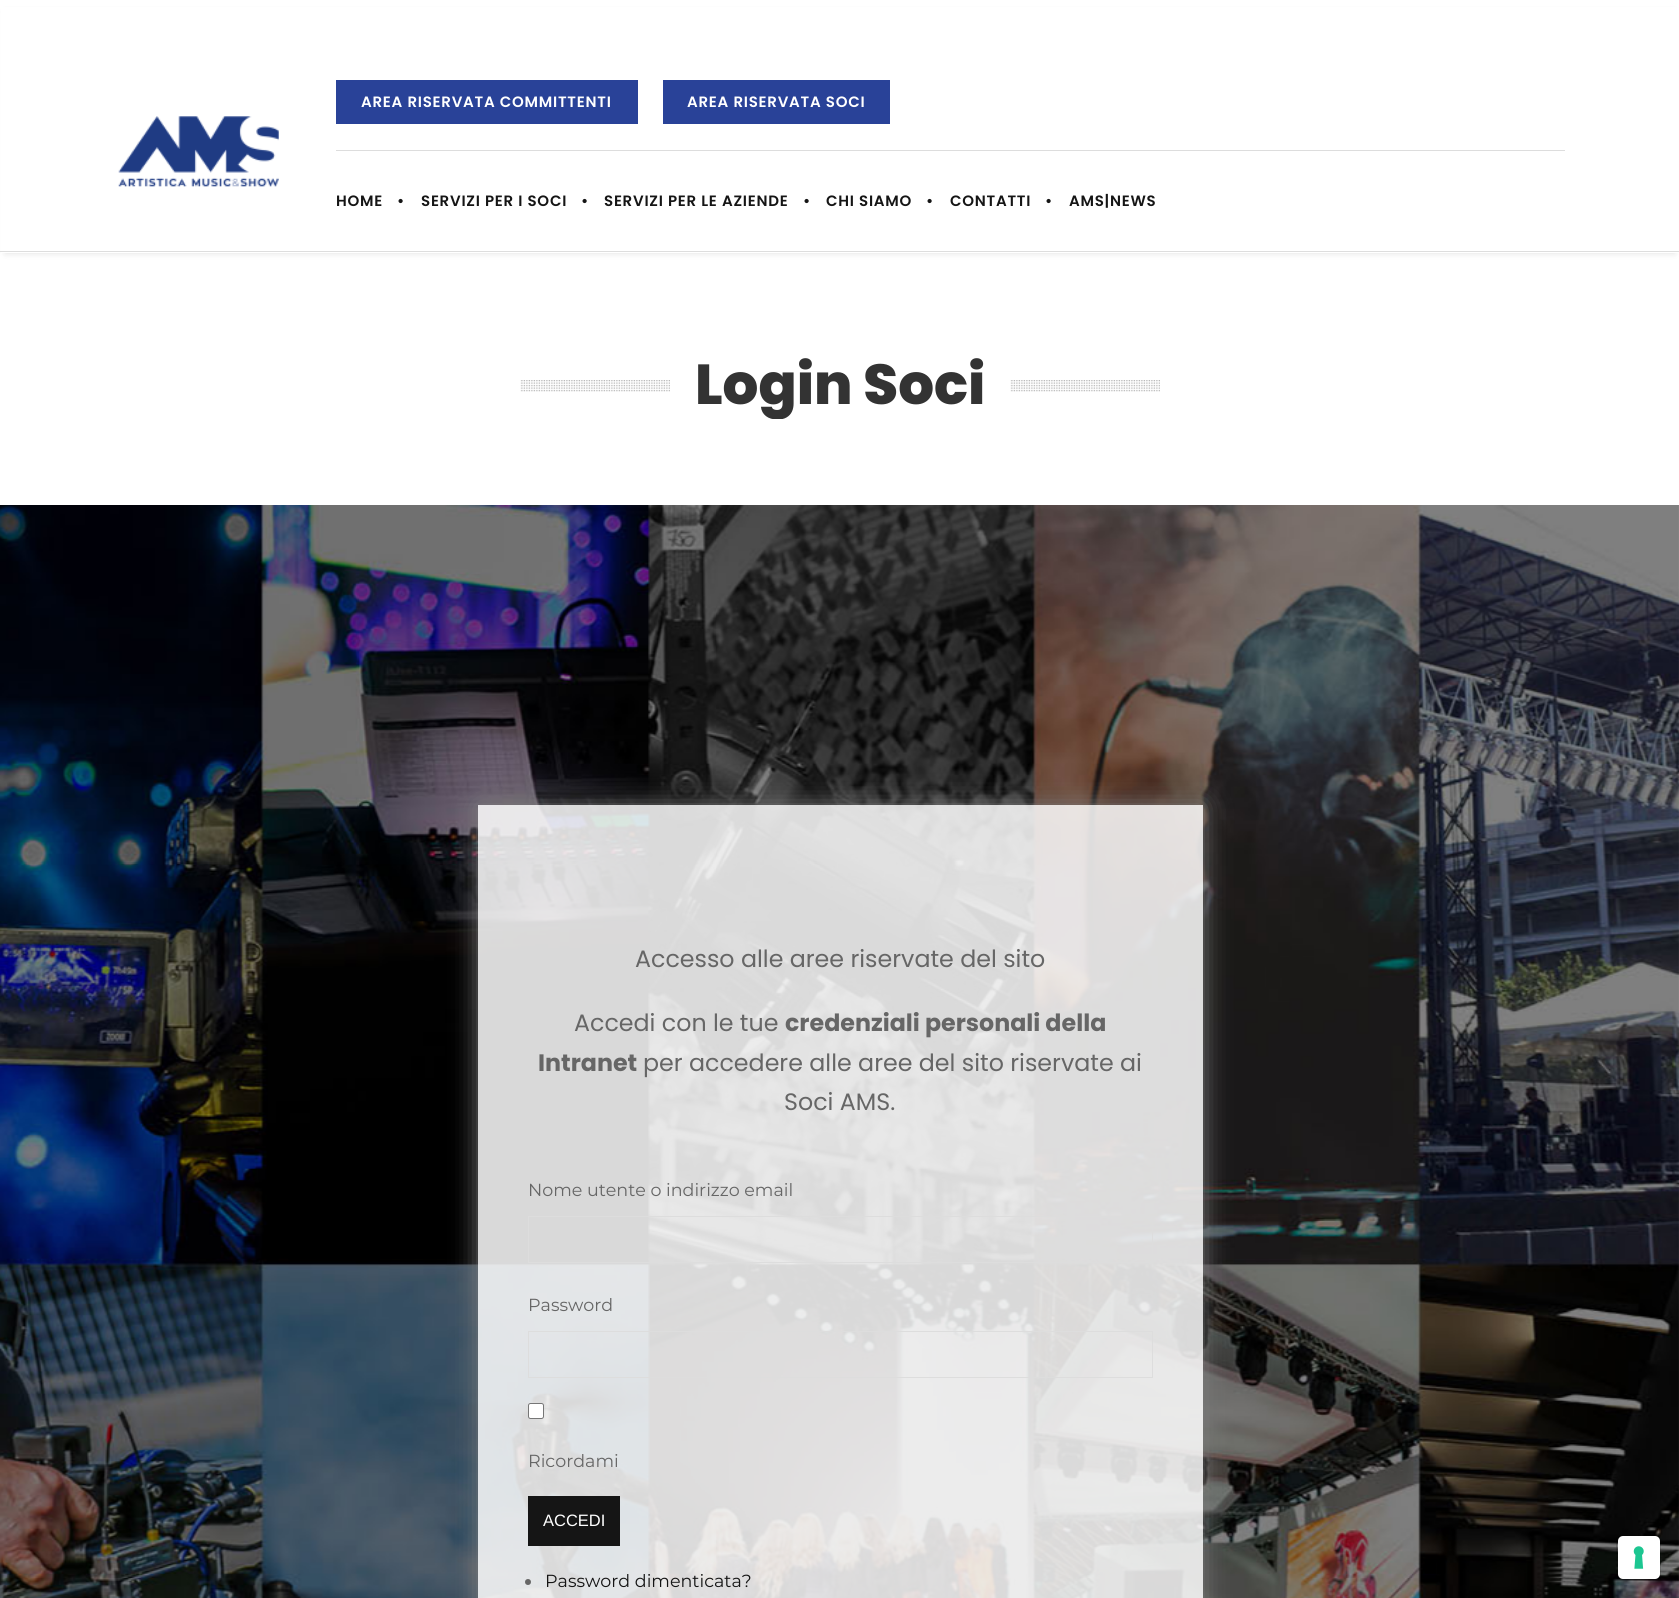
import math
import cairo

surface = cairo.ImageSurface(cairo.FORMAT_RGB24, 1679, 1598)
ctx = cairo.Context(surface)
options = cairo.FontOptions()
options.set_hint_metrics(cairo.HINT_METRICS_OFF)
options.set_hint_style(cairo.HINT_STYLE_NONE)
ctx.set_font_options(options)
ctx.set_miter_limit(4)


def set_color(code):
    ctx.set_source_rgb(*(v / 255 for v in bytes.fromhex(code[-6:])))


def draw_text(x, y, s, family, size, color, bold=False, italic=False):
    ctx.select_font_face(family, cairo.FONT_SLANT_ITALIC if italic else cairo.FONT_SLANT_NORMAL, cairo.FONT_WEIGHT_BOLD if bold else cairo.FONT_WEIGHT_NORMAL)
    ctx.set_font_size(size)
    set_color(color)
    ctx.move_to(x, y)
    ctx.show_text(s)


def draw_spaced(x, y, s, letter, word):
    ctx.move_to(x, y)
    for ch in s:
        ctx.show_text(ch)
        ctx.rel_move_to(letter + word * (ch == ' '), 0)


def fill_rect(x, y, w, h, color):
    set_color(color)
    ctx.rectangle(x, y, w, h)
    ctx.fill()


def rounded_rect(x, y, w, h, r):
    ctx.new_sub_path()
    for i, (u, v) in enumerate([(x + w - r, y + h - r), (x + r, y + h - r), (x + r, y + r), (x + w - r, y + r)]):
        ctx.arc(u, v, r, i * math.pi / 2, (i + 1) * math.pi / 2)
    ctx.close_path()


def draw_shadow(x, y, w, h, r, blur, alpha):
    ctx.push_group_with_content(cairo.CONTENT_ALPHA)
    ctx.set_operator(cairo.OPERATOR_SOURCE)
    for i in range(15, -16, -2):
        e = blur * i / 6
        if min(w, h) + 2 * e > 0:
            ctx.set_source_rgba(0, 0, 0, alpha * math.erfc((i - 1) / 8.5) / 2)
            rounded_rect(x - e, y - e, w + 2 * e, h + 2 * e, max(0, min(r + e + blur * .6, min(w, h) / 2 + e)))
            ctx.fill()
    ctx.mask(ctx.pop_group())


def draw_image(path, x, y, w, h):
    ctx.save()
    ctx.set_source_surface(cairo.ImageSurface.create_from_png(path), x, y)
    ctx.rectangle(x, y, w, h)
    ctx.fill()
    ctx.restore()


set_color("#ffffff")
ctx.paint()
set_color("#000000")
draw_shadow(5, 11, 1670, 243, 0, 3, 0.1)
fill_rect(1, 7, 1678, 246, "#ffffff")
fill_rect(0, 251, 1679, 1, "#dddddd")
draw_image("assets/img1.png", 118, 116, 161, 71)
fill_rect(336, 80, 302, 44, "#294298")
ctx.select_font_face("Poppins SemiBold")
ctx.set_font_size(15)
set_color("#ffffff")
draw_spaced(361, 107, "AREA RISERVATA COMMITTENTI", 0.75, 0)
fill_rect(663, 80, 227, 44, "#294298")
set_color("#ffffff")
draw_spaced(687, 107, "AREA RISERVATA SOCI", 0.75, 0)
fill_rect(336, 150, 1229, 1, "#dddddd")
set_color("#151515")
draw_spaced(336, 206, "HOME", 0.75, 0)
draw_spaced(397, 206, "•", 0.75, 0)
draw_spaced(421, 206, "SERVIZI PER I SOCI", 0.75, 0)
draw_spaced(581, 206, "•", 0.75, 0)
draw_spaced(604, 206, "SERVIZI PER LE AZIENDE", 0.75, 0)
draw_spaced(803, 206, "•", 0.75, 0)
draw_spaced(826, 206, "CHI SIAMO", 0.75, 0)
draw_spaced(926, 206, "•", 0.75, 0)
draw_spaced(950, 206, "CONTATTI", 0.75, 0)
draw_spaced(1045, 206, "•", 0.75, 0)
draw_spaced(1069, 206, "AMS|NEWS", 0.75, 0)
draw_image("assets/img2.png", 520, 380, 150, 12)
ctx.save()
ctx.rectangle(520, 351, 640, 68)
ctx.clip()
draw_text(695, 404, "Login Soci", "Poppins ExtraBold", 56.25, "#333333")
ctx.restore()
draw_image("assets/img3.png", 1010, 380, 150, 12)
draw_image("assets/img4.png", 0, 505, 1679, 1093)
ctx.save()
ctx.set_fill_rule(cairo.FILL_RULE_EVEN_ODD)
ctx.new_path()
ctx.move_to(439, 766)
ctx.line_to(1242, 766)
ctx.line_to(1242, 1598)
ctx.line_to(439, 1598)
ctx.close_path()
ctx.move_to(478, 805)
ctx.line_to(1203, 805)
ctx.line_to(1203, 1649)
ctx.line_to(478, 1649)
ctx.close_path()
ctx.clip()
set_color("#7c7c7c")
draw_shadow(478, 805, 725, 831, 0, 12.5, 1)
ctx.restore()
ctx.set_source_rgba(1, 1, 1, 0.85)
ctx.rectangle(478, 805, 725, 793)
ctx.fill()
draw_text(635, 967, "Accesso alle aree riservate del sito", "Poppins", 23.75, "#666666")
draw_text(574, 1031, "Accedi con le tue", "Poppins", 23.75, "#666666")
draw_text(785, 1031, "credenziali personali della", "Poppins", 23.75, "#666666", bold=True)
draw_text(538, 1071, "Intranet", "Poppins", 23.75, "#666666", bold=True)
draw_text(643, 1071, "per accedere alle aree del sito riservate ai", "Poppins", 23.75, "#666666")
draw_text(784, 1110, "Soci AMS.", "Poppins", 23.75, "#666666")
draw_text(528, 1196, "Nome utente o indirizzo email", "Montserrat", 17.5, "#666666")
ctx.rectangle(528.5, 1216.5, 624, 46)
set_color("#dddddd")
ctx.set_line_width(1)
ctx.stroke()
draw_text(528, 1311, "Password", "Montserrat", 17.5, "#666666")
ctx.rectangle(528.5, 1331.5, 624, 46)
set_color("#dddddd")
ctx.stroke()
set_color("#ffffff")
rounded_rect(528.5, 1403.5, 15, 15, 2)
ctx.fill_preserve()
set_color("#767676")
ctx.stroke()
draw_text(528, 1467, "Ricordami", "Montserrat", 17.5, "#666666")
fill_rect(528, 1496, 92, 50, "#151515")
draw_text(543, 1526, "ACCEDI", "Liberation Sans", 16.5, "#ffffff")
set_color("#666666")
ctx.new_path()
ctx.arc(528, 1582, 3, 0, 2 * math.pi)
ctx.fill()
draw_text(545, 1587, "Password dimenticata?", "Montserrat", 17.5, "#151515")
rounded_rect(1616.5, 1535.5, 44, 44, 5.5)
ctx.set_source_rgba(0, 0, 0, 0.15)
ctx.stroke()
set_color("#ffffff")
rounded_rect(1618, 1536, 42, 43, 5)
ctx.fill()
draw_image("assets/img5.png", 1633, 1546, 11, 23)
surface.write_to_png("output.png")
